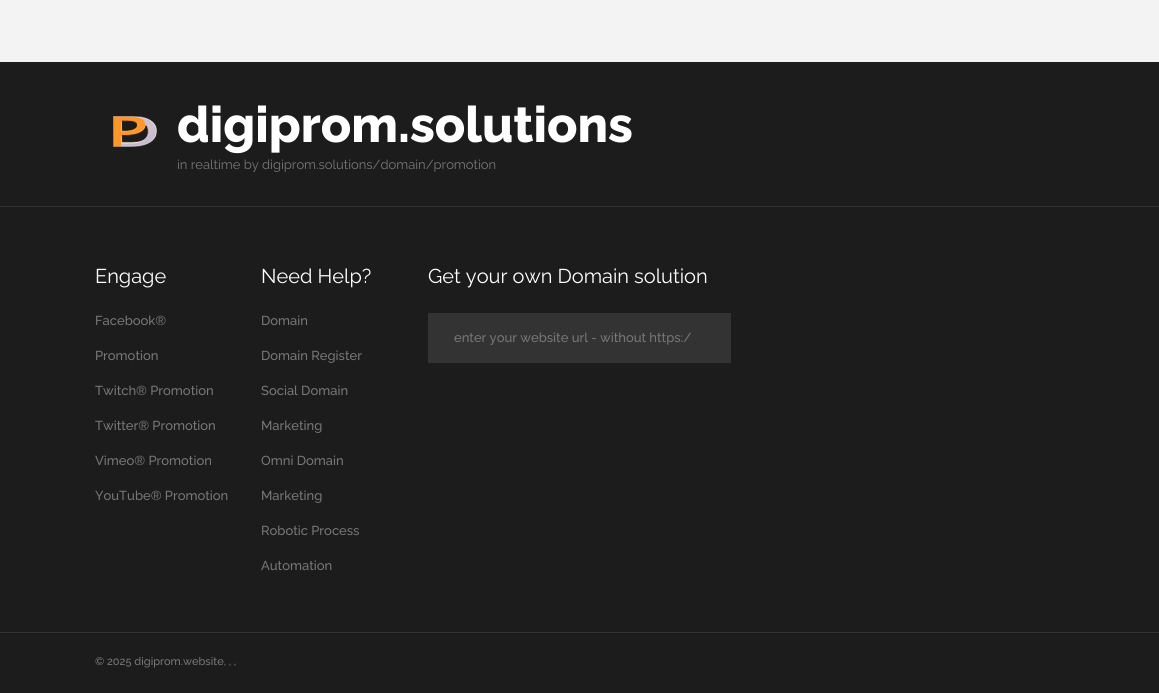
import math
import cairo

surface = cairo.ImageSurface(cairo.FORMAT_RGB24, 1159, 693)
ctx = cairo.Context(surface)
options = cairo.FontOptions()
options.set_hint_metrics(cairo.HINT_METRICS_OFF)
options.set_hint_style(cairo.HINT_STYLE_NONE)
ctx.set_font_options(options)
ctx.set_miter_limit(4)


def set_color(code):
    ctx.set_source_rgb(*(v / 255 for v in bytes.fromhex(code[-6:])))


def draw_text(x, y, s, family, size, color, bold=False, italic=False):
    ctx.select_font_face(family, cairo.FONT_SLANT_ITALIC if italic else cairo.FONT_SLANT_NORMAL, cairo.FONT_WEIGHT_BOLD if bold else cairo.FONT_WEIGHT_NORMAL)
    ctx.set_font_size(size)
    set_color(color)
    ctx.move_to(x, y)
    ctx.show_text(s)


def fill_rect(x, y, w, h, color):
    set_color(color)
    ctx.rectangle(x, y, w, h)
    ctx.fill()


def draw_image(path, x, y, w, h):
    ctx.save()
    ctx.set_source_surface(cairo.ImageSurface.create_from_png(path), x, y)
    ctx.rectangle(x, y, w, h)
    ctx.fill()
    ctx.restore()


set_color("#1c1c1c")
ctx.paint()
fill_rect(0, 0, 1159, 62, "#f3f3f3")
draw_image("assets/img1.png", 113, 116, 44, 31)
draw_text(177, 142, "digiprom.solutions", "Raleway ExtraBold", 50, "#ffffff")
draw_text(177, 169, "in realtime by digiprom.solutions/domain/promotion", "Raleway", 13, "#777777")
fill_rect(0, 206, 1159, 1, "#333333")
draw_text(95, 283, "Engage", "Raleway", 20, "#ffffff")
draw_text(95, 325, "Facebook®", "Raleway Medium", 13, "#777777")
draw_text(95, 360, "Promotion", "Raleway Medium", 13, "#777777")
draw_text(95, 395, "Twitch® Promotion", "Raleway Medium", 13, "#777777")
draw_text(95, 430, "Twitter® Promotion", "Raleway Medium", 13, "#777777")
draw_text(95, 465, "Vimeo® Promotion", "Raleway Medium", 13, "#777777")
draw_text(95, 500, "YouTube® Promotion", "Raleway Medium", 13, "#777777")
draw_text(261, 283, "Need Help?", "Raleway", 20, "#ffffff")
draw_text(261, 325, "Domain", "Raleway Medium", 13, "#777777")
draw_text(261, 360, "Domain Register", "Raleway Medium", 13, "#777777")
draw_text(261, 395, "Social Domain", "Raleway Medium", 13, "#777777")
draw_text(261, 430, "Marketing", "Raleway Medium", 13, "#777777")
draw_text(261, 465, "Omni Domain", "Raleway Medium", 13, "#777777")
draw_text(261, 500, "Marketing", "Raleway Medium", 13, "#777777")
draw_text(261, 535, "Robotic Process", "Raleway Medium", 13, "#777777")
draw_text(261, 570, "Automation", "Raleway Medium", 13, "#777777")
draw_text(428, 283, "Get your own Domain solution", "Raleway", 20, "#ffffff")
fill_rect(428, 313, 303, 50, "#333333")
draw_text(454, 342, "enter your website url - without https:/", "Raleway Medium", 13, "#777777")
fill_rect(0, 632, 1159, 1, "#333333")
draw_text(95, 665, "© 2025 digiprom.website, , ,", "Raleway Medium", 11, "#777777")
surface.write_to_png("output.png")
